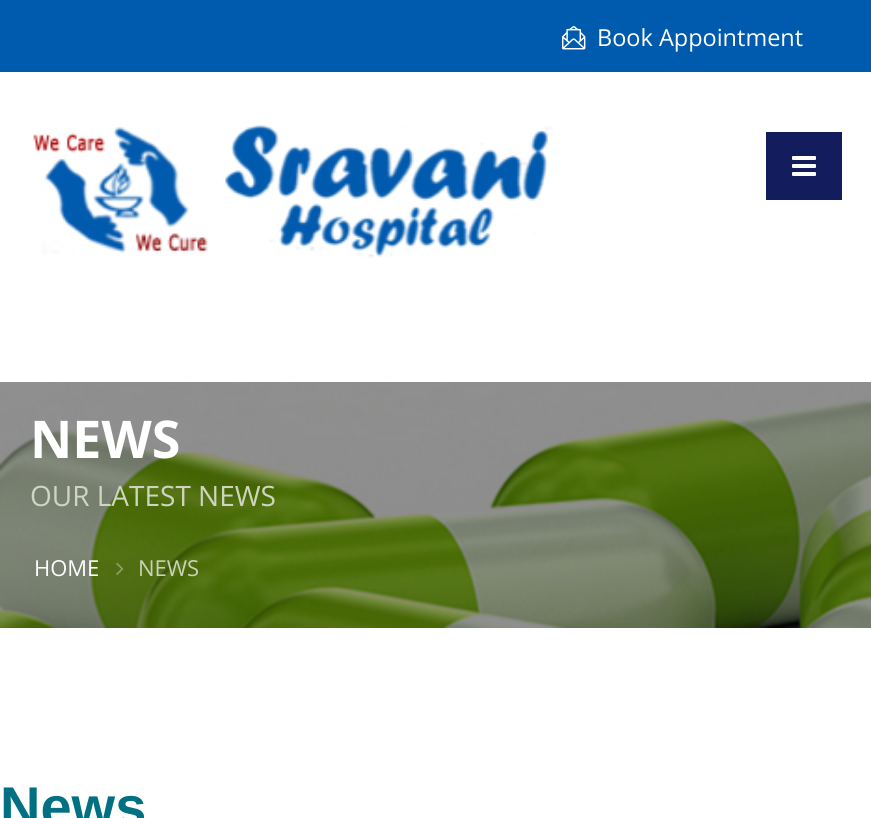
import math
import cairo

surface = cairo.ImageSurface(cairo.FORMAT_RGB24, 871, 818)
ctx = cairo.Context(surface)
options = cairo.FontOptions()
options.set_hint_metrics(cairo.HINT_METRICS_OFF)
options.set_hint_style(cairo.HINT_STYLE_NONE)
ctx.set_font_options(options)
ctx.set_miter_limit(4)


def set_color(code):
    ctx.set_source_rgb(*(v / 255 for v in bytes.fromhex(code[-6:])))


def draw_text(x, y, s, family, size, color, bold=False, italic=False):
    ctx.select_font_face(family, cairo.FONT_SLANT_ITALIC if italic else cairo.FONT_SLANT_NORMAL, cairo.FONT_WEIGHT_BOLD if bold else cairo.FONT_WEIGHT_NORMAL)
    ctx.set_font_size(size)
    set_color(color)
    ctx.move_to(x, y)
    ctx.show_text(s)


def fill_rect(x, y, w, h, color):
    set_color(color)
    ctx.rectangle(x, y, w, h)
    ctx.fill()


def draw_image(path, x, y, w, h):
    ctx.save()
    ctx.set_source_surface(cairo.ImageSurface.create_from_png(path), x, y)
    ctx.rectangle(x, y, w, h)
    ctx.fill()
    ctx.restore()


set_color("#ffffff")
ctx.paint()
fill_rect(0, 0, 871, 72, "#005aad")
draw_image("assets/img1.png", 562, 26, 24, 24)
draw_text(597, 46, "Book Appointment", "Open Sans", 23.5, "#ffffff")
draw_image("assets/img2.png", 33, 125, 520, 133)
fill_rect(766, 132, 76, 68, "#131c5d")
draw_image("assets/img3.png", 792, 156, 24, 20)
draw_image("assets/img4.png", 0, 382, 871, 246)
draw_text(30, 458, "NEWS", "Open Sans", 52, "#ffffff", bold=True)
draw_text(30, 506, "OUR LATEST NEWS", "Open Sans", 28, "#ced5c0")
draw_text(34, 576, "HOME", "Open Sans", 22, "#ffffff")
draw_image("assets/img5.png", 116, 562, 8, 13)
draw_text(138, 576, "NEWS", "Open Sans", 22, "#cad3b7")
draw_text(0, 826, "News", "Liberation Sans", 56, "#007082", bold=True)
surface.write_to_png("output.png")
